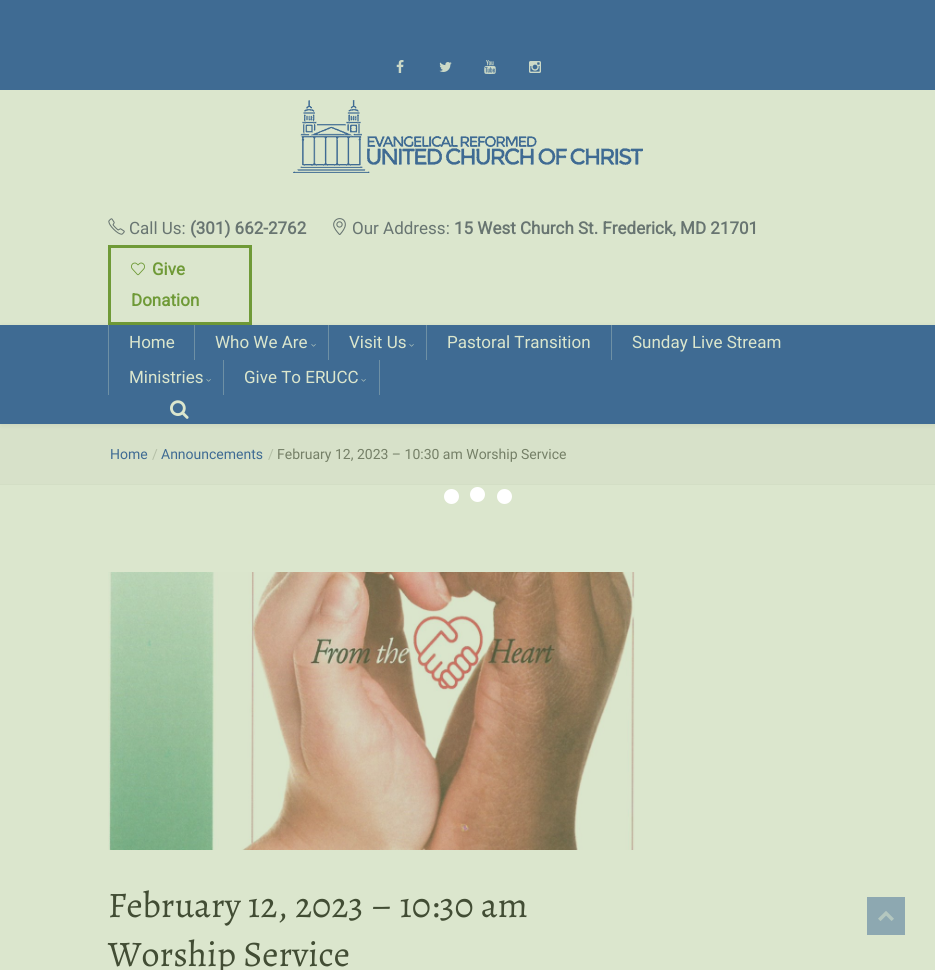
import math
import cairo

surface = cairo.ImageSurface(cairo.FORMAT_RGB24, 935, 970)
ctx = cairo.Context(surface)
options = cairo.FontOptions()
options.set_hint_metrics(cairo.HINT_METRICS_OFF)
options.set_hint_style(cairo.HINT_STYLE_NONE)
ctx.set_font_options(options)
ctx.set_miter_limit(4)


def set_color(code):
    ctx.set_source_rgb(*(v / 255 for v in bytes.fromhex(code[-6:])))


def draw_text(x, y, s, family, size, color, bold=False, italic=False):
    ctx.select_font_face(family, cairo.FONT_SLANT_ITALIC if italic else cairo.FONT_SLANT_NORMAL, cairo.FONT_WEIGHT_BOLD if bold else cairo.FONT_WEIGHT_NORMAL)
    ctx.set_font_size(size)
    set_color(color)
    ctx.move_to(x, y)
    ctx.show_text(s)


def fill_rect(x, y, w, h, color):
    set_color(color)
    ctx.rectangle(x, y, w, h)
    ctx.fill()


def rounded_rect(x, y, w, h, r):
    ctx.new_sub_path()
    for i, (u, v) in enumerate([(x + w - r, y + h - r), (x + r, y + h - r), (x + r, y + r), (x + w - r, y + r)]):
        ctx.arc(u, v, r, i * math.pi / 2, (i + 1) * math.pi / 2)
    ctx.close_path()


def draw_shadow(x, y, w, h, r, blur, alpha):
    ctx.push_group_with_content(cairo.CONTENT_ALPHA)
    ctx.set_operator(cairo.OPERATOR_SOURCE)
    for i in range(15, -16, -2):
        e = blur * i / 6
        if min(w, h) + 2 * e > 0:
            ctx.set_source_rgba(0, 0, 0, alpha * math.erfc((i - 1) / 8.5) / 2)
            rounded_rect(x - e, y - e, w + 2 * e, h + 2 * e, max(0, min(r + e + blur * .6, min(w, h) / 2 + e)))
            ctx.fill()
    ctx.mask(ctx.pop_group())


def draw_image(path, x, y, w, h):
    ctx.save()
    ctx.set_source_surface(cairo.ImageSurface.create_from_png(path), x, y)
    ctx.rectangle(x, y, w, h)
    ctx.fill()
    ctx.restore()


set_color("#dbe6cd")
ctx.paint()
fill_rect(0, 0, 935, 90, "#3f6b93")
draw_image("assets/img1.png", 396, 60, 8, 13)
draw_image("assets/img2.png", 439, 62, 13, 10)
draw_image("assets/img3.png", 484, 60, 12, 14)
draw_image("assets/img4.png", 529, 61, 12, 12)
draw_image("assets/img5.png", 293, 100, 350, 73)
draw_image("assets/img6.png", 108, 218, 17, 17)
draw_text(129, 234, "Call Us:", "Roboto", 17, "#687571")
draw_text(190, 234, "(301) 662-2762", "Roboto", 17, "#687571", bold=True)
draw_image("assets/img7.png", 333, 218, 13, 17)
draw_text(352, 234, "Our Address:", "Roboto", 17, "#687571")
draw_text(454, 234, "15 West Church St. Frederick, MD 21701", "Roboto", 17, "#687571", bold=True)
ctx.rectangle(109.5, 246.5, 141, 77)
set_color("#6f9a37")
ctx.set_line_width(3)
ctx.stroke()
draw_image("assets/img8.png", 131, 262, 14, 14)
draw_text(152, 275, "Give", "Roboto", 17, "#6f9a37", bold=True)
draw_text(131, 306, "Donation", "Roboto", 17, "#6f9a37", bold=True)
fill_rect(0, 424, 935, 60, "#d7e1c9")
set_color("#1c270e")
draw_shadow(1, 326, 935, 99, 0, 2.5, 0.08)
fill_rect(0, 325, 935, 99, "#3f6b93")
fill_rect(108, 325, 1, 70, "#6e90a5")
draw_text(129, 348, "Home", "Roboto", 17, "#dbe6cd")
fill_rect(194, 325, 1, 35, "#6e90a5")
draw_text(215, 348, "Who We Are", "Roboto", 17, "#dbe6cd")
draw_image("assets/img9.png", 311, 344, 5, 3)
fill_rect(328, 325, 1, 35, "#6e90a5")
draw_text(349, 348, "Visit Us", "Roboto", 17, "#dbe6cd")
draw_image("assets/img9.png", 409, 344, 5, 3)
fill_rect(426, 325, 1, 35, "#6e90a5")
draw_text(447, 348, "Pastoral Transition", "Roboto", 17, "#dbe6cd")
fill_rect(611, 325, 1, 35, "#6e90a5")
draw_text(632, 348, "Sunday Live Stream", "Roboto", 17, "#dbe6cd")
draw_text(129, 383, "Ministries", "Roboto", 17, "#dbe6cd")
draw_image("assets/img9.png", 206, 379, 5, 3)
fill_rect(379, 360, 1, 35, "#6e90a5")
fill_rect(223, 360, 1, 35, "#6e90a5")
draw_text(244, 383, "Give To ERUCC", "Roboto", 17, "#dbe6cd")
draw_image("assets/img9.png", 361, 379, 5, 3)
draw_image("assets/img10.png", 170, 400, 19, 19)
fill_rect(0, 484, 935, 1, "#d3dec5")
draw_text(110, 459, "Home", "Roboto", 14, "#3f6b93")
draw_text(152, 459, "/", "Roboto", 14, "#b5c0a7")
draw_text(161, 459, "Announcements", "Roboto", 14, "#3f6b93")
draw_text(268, 459, "/", "Roboto", 14, "#b5c0a7")
draw_text(277, 459, "February 12, 2023 – 10:30 am Worship Service", "Roboto", 14, "#758067")
draw_image("assets/img11.png", 108, 572, 527, 278)
draw_text(108, 917, "February 12, 2023 – 10:30 am", "Alegreya", 36, "#424d34")
draw_text(108, 966, "Worship Service", "Alegreya", 36, "#424d34")
set_color("#ffffff")
ctx.new_path()
ctx.arc(477.5, 494.5, 7.5, 0, 2 * math.pi)
ctx.fill()
ctx.arc(451.5, 496.5, 7.5, 0, 2 * math.pi)
ctx.fill()
ctx.arc(504.5, 496.5, 7.5, 0, 2 * math.pi)
ctx.fill()
fill_rect(867, 897, 38, 38, "#8da8b1")
draw_image("assets/img12.png", 878, 911, 16, 10)
surface.write_to_png("output.png")
